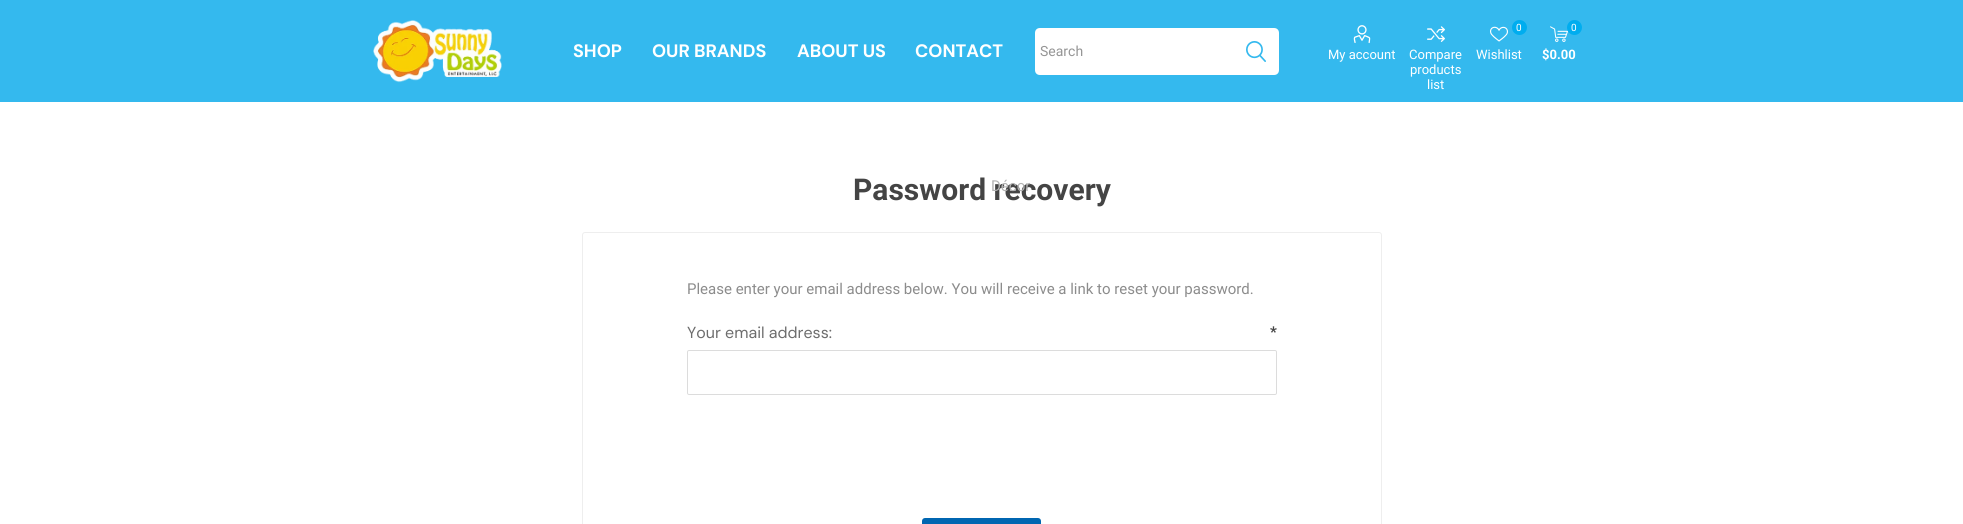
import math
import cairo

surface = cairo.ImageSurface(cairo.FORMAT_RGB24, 1963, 524)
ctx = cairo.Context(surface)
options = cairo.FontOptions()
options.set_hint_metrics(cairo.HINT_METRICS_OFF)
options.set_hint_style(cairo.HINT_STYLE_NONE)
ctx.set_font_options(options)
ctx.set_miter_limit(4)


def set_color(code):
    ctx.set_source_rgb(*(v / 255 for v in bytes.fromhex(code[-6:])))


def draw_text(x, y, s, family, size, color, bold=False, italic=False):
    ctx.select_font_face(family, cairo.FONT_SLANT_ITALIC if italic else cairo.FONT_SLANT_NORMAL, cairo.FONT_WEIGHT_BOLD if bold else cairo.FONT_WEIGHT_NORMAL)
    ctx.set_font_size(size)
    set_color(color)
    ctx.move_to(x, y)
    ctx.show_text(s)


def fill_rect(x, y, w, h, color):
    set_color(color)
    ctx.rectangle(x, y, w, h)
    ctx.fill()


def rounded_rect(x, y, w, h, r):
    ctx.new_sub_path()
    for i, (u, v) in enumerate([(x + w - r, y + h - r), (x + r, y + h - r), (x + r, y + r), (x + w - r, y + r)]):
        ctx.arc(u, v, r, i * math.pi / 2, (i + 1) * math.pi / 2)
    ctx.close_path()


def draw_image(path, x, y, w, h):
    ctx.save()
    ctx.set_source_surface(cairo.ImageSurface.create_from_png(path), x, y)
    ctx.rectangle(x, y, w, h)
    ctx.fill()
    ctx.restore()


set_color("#ffffff")
ctx.paint()
fill_rect(0, 0, 1963, 102, "#34b9ee")
draw_image("assets/img1.png", 373, 20, 129, 63)
draw_text(573, 57, "SHOP", "DM Sans", 18, "#ffffff", bold=True)
draw_text(853, 200, "Password recovery", "Roboto", 30, "#444444", bold=True)
draw_text(991, 191, "Décor", "Roboto", 15, "#b3b3b3")
draw_text(652, 57, "OUR BRANDS", "DM Sans", 18, "#ffffff", bold=True)
draw_text(797, 57, "ABOUT US", "DM Sans", 18, "#ffffff", bold=True)
draw_text(915, 57, "CONTACT", "DM Sans", 18, "#ffffff", bold=True)
ctx.new_path()
ctx.move_to(1040, 28)
ctx.line_to(1232, 28)
ctx.line_to(1232, 75)
ctx.line_to(1040, 75)
ctx.curve_to(1037, 75, 1035, 73, 1035, 70)
ctx.line_to(1035, 33)
ctx.curve_to(1035, 30, 1037, 28, 1040, 28)
ctx.close_path()
ctx.fill()
draw_text(1040, 56, "Search", "Roboto", 14, "#959595")
set_color("#ffffff")
ctx.new_path()
ctx.move_to(1232, 28)
ctx.line_to(1274, 28)
ctx.curve_to(1277, 28, 1279, 30, 1279, 33)
ctx.line_to(1279, 70)
ctx.curve_to(1279, 73, 1277, 75, 1274, 75)
ctx.line_to(1232, 75)
ctx.close_path()
ctx.fill()
draw_image("assets/img2.png", 1246, 41, 20, 21)
draw_image("assets/img3.png", 1353, 25, 18, 19)
draw_text(1328, 59, "My account", "Roboto", 13, "#ffffff")
draw_image("assets/img4.png", 1427, 26, 18, 16)
draw_text(1409, 59, "Compare", "Roboto", 13, "#ffffff")
draw_text(1410, 74, "products", "Roboto", 13, "#ffffff")
draw_text(1427, 89, "list", "Roboto", 13, "#ffffff")
draw_image("assets/img5.png", 1490, 26, 18, 16)
set_color("#00adef")
ctx.arc(1519.5, 27.5, 7.5, 0, 2 * math.pi)
ctx.fill()
draw_text(1516, 31, "0", "Roboto", 10, "#ffffff")
draw_text(1476, 59, "Wishlist", "Roboto", 13, "#ffffff")
draw_image("assets/img6.png", 1550, 26, 18, 16)
set_color("#00adef")
ctx.arc(1574.5, 27.5, 7.5, 0, 2 * math.pi)
ctx.fill()
draw_text(1571, 31, "0", "Roboto", 10, "#ffffff")
draw_text(1542, 59, "$0.00", "Roboto", 13, "#ffffff", bold=True)
rounded_rect(582.5, 232.5, 799, 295, 2.5)
set_color("#eeeeee")
ctx.set_line_width(1)
ctx.stroke()
draw_text(687, 294, "Please enter your email address below. You will receive a link to reset your password.", "Roboto", 15, "#8c8c8c")
draw_text(687, 338, "Your email address:", "DM Sans", 16, "#6d6d6d")
draw_text(1270, 337, "*", "Roboto", 15, "#444444", bold=True)
rounded_rect(687.5, 350.5, 589, 44, 1.5)
set_color("#dcdcdc")
ctx.stroke()
set_color("#0066b1")
rounded_rect(922, 518, 119, 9, 3)
ctx.fill()
surface.write_to_png("output.png")
